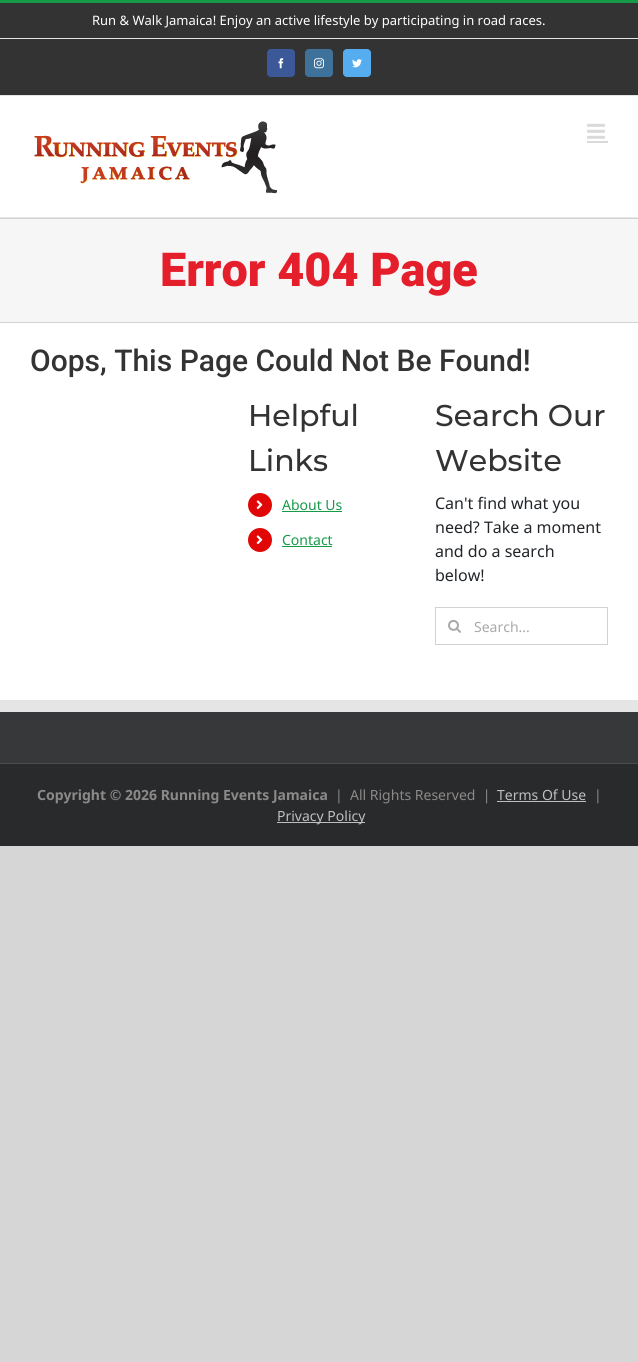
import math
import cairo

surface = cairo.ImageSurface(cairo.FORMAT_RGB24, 638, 1362)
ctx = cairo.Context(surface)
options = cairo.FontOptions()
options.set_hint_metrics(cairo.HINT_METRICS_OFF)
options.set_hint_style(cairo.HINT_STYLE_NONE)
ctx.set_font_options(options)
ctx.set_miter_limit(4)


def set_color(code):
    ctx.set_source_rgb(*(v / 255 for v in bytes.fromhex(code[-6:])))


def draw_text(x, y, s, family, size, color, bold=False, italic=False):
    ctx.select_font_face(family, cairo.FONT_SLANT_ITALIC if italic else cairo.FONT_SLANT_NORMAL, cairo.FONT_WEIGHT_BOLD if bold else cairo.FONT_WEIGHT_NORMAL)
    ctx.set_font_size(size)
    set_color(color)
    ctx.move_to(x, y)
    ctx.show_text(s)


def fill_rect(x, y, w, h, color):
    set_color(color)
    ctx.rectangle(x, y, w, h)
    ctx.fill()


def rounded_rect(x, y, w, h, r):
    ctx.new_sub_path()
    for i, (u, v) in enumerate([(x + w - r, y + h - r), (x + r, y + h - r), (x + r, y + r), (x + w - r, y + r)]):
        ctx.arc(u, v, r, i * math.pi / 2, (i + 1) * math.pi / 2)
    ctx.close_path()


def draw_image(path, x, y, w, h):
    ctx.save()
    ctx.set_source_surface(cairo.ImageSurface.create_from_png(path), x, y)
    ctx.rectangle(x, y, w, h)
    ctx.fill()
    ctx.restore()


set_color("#d7d6d6")
ctx.paint()
fill_rect(0, 96, 638, 604, "#ffffff")
fill_rect(0, 3, 638, 92, "#333333")
fill_rect(0, 0, 638, 3, "#179a48")
fill_rect(0, 95, 638, 1, "#e5e5e5")
fill_rect(0, 38, 638, 1, "#e5e5e5")
draw_text(92, 25, "Run & Walk Jamaica! Enjoy an active lifestyle by participating in road races.", "Noto Sans", 13, "#ffffff")
set_color("#3b5998")
rounded_rect(267.5, 49.5, 27, 27, 3.5)
ctx.fill_preserve()
ctx.set_line_width(1)
ctx.stroke()
draw_image("assets/img1.png", 278, 58, 6, 11)
set_color("#3f729b")
rounded_rect(305.5, 49.5, 27, 27, 3.5)
ctx.fill_preserve()
ctx.stroke()
draw_image("assets/img2.png", 314, 58, 10, 11)
set_color("#55acee")
rounded_rect(343.5, 49.5, 27, 27, 3.5)
ctx.fill_preserve()
ctx.stroke()
draw_image("assets/img3.png", 352, 59, 10, 9)
fill_rect(0, 217, 638, 1, "#e5e5e5")
draw_image("assets/img4.png", 34, 121, 243, 73)
draw_image("assets/img5.png", 587, 123, 18, 16)
fill_rect(587, 141, 21, 2, "#dadada")
fill_rect(0, 219, 638, 103, "#f6f6f6")
fill_rect(0, 218, 638, 1, "#d2d3d4")
fill_rect(0, 322, 638, 1, "#d2d3d4")
draw_text(160, 286, "Error 404 Page", "Roboto Black", 46.75, "#e41f2b")
draw_text(30, 371, "Oops, This Page Could Not Be Found!", "Roboto Medium", 30, "#333333")
draw_text(248, 426, "Helpful", "Montserrat Medium", 30, "#333333")
draw_text(248, 471, "Links", "Montserrat Medium", 30, "#333333")
set_color("#e10707")
ctx.new_path()
ctx.arc(260, 505, 12, 0, 2 * math.pi)
ctx.fill()
draw_image("assets/img6.png", 256, 500, 7, 10)
draw_text(282, 510, "About Us", "Noto Sans", 14, "#179a48")
fill_rect(282, 511, 60, 1, "#179a48")
set_color("#e10707")
ctx.new_path()
ctx.arc(260, 540, 12, 0, 2 * math.pi)
ctx.fill()
draw_image("assets/img6.png", 256, 535, 7, 10)
draw_text(282, 545, "Contact", "Noto Sans", 14, "#179a48")
fill_rect(282, 546, 50, 1, "#179a48")
draw_text(435, 426, "Search Our", "Montserrat Medium", 30, "#333333")
draw_text(435, 471, "Website", "Montserrat Medium", 30, "#333333")
draw_text(435, 509, "Can't find what you", "Noto Sans", 16, "#212529")
draw_text(435, 533, "need? Take a moment", "Noto Sans", 16, "#212529")
draw_text(435, 557, "and do a search", "Noto Sans", 16, "#212529")
draw_text(435, 581, "below!", "Noto Sans", 16, "#212529")
ctx.rectangle(435.5, 607.5, 172, 37)
set_color("#d2d2d2")
ctx.stroke()
draw_image("assets/img7.png", 448, 619, 13, 14)
draw_text(474, 632, "Search...", "Noto Sans", 14, "#aaa9a9")
fill_rect(0, 712, 638, 51, "#363839")
fill_rect(0, 700, 638, 12, "#e5e5e5")
fill_rect(0, 764, 638, 82, "#282a2b")
fill_rect(0, 763, 638, 1, "#4b4c4d")
draw_text(37, 800, "Copyright © 2026 Running Events Jamaica", "Noto Sans", 14, "#8c8989", bold=True)
draw_text(335, 800, "|  All Rights Reserved  |", "Noto Sans", 14, "#8c8989")
draw_text(497, 800, "Terms Of Use", "Noto Sans", 14, "#bfbfbf")
fill_rect(497, 801, 89, 1, "#bfbfbf")
draw_text(594, 800, "|", "Noto Sans", 14, "#8c8989")
fill_rect(277, 822, 88, 1, "#bfbfbf")
draw_text(277, 821, "Privacy Policy", "Noto Sans", 14, "#bfbfbf")
surface.write_to_png("output.png")
